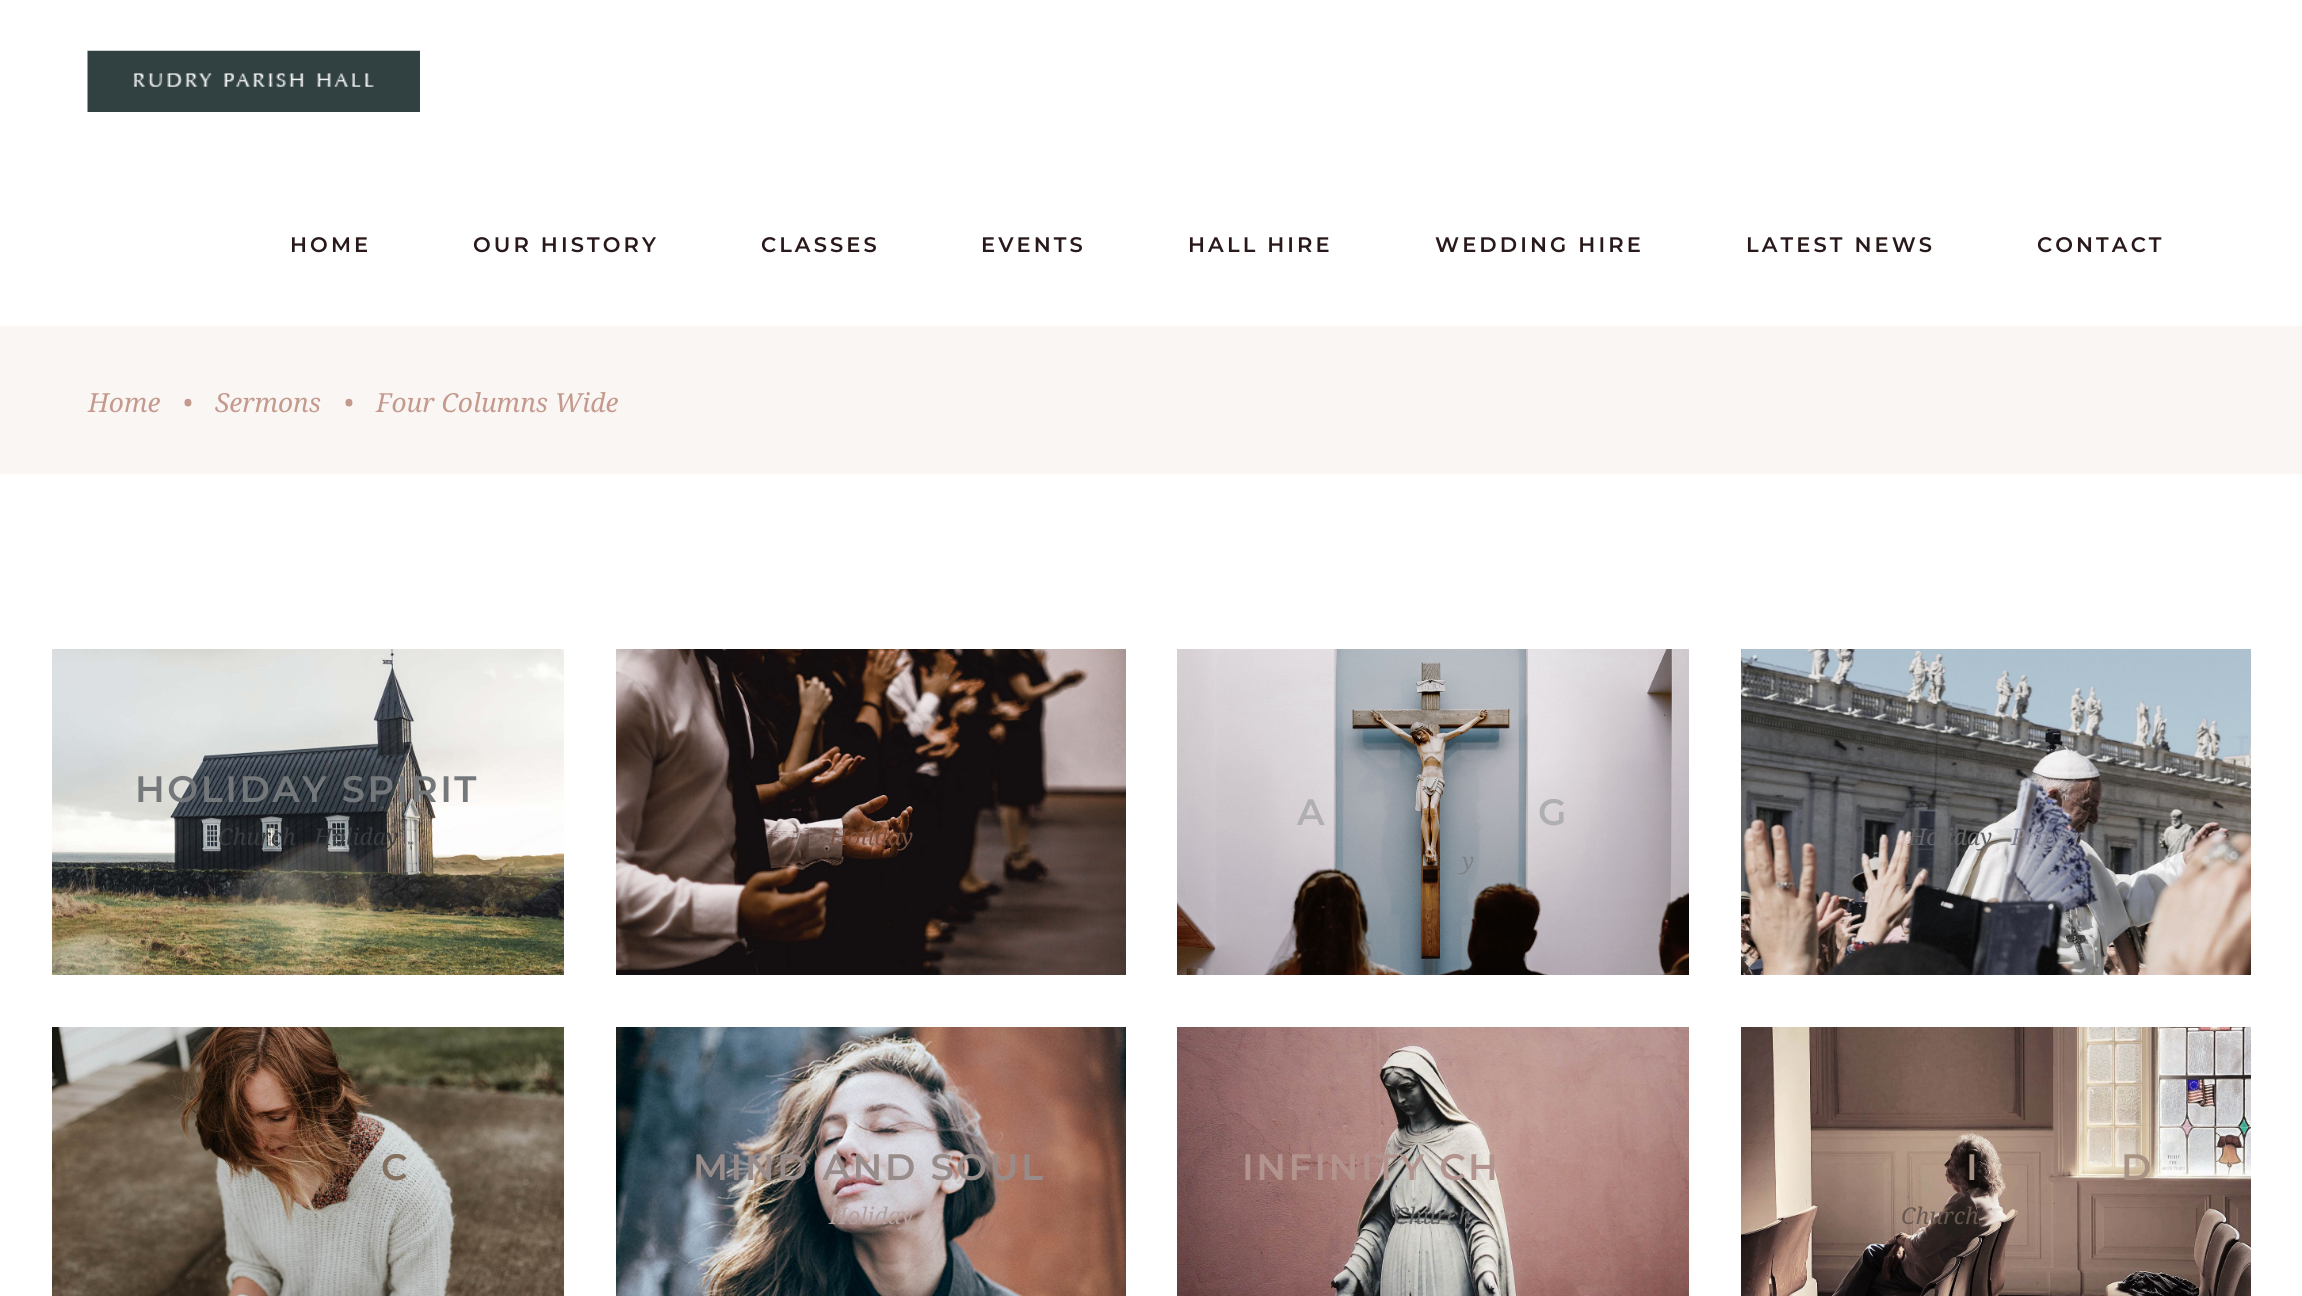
import math
import cairo

surface = cairo.ImageSurface(cairo.FORMAT_RGB24, 2302, 1296)
ctx = cairo.Context(surface)
options = cairo.FontOptions()
options.set_hint_metrics(cairo.HINT_METRICS_OFF)
options.set_hint_style(cairo.HINT_STYLE_NONE)
ctx.set_font_options(options)
ctx.set_miter_limit(4)


def set_color(code):
    ctx.set_source_rgb(*(v / 255 for v in bytes.fromhex(code[-6:])))


def draw_text(x, y, s, family, size, color, bold=False, italic=False):
    ctx.select_font_face(family, cairo.FONT_SLANT_ITALIC if italic else cairo.FONT_SLANT_NORMAL, cairo.FONT_WEIGHT_BOLD if bold else cairo.FONT_WEIGHT_NORMAL)
    ctx.set_font_size(size)
    set_color(color)
    ctx.move_to(x, y)
    ctx.show_text(s)


def draw_spaced(x, y, s, letter, word):
    ctx.move_to(x, y)
    for ch in s:
        ctx.show_text(ch)
        ctx.rel_move_to(letter + word * (ch == ' '), 0)


def fill_rect(x, y, w, h, color):
    set_color(color)
    ctx.rectangle(x, y, w, h)
    ctx.fill()


def draw_image(path, x, y, w, h):
    ctx.save()
    ctx.set_source_surface(cairo.ImageSurface.create_from_png(path), x, y)
    ctx.rectangle(x, y, w, h)
    ctx.fill()
    ctx.restore()


set_color("#ffffff")
ctx.paint()
draw_image("assets/img1.png", 87, 50, 333, 62)
ctx.select_font_face("Montserrat SemiBold")
ctx.set_font_size(21)
set_color("#29191a")
draw_spaced(290, 252, "HOME", 3.1, 0)
draw_spaced(473, 252, "OUR HISTORY", 3.1, 0)
draw_spaced(761, 252, "CLASSES", 3.1, 0)
draw_spaced(981, 252, "EVENTS", 3.1, 0)
draw_spaced(1188, 252, "HALL HIRE", 3.1, 0)
draw_spaced(1435, 252, "WEDDING HIRE", 3.1, 0)
draw_spaced(1746, 252, "LATEST NEWS", 3.1, 0)
draw_spaced(2037, 252, "CONTACT", 3.1, 0)
fill_rect(0, 326, 2302, 148, "#faf6f4")
draw_text(88, 412, "Home", "Noto Serif", 26.25, "#c59a8e", italic=True)
draw_text(183, 412, "•", "Noto Serif", 26.25, "#c59a8e", italic=True)
draw_text(215, 412, "Sermons", "Noto Serif", 26.25, "#c59a8e", italic=True)
draw_text(344, 412, "•", "Noto Serif", 26.25, "#c59a8e", italic=True)
draw_text(376, 412, "Four Columns Wide", "Noto Serif", 26.25, "#c59a8e", italic=True)
draw_image("assets/img2.png", 52, 649, 512, 326)
ctx.select_font_face("Montserrat SemiBold")
ctx.set_font_size(36.75)
set_color("#74787b")
draw_spaced(135, 802, "HOLIDAY SPIRIT", 2.5, 0)
draw_text(218, 845, "Church", "Noto Serif", 23, "#393d40", italic=True)
draw_text(314, 845, "Holiday", "Noto Serif", 23, "#393d40", italic=True)
draw_image("assets/img3.png", 616, 649, 510, 326)
draw_text(829, 845, "Holiday", "Noto Serif", 23, "#785140", italic=True)
draw_image("assets/img4.png", 1177, 649, 512, 326)
ctx.select_font_face("Montserrat SemiBold")
ctx.set_font_size(36.75)
set_color("#aeaeb3")
draw_spaced(1297, 825, "A", 2.5, 0)
draw_spaced(1538, 825, "G", 2.5, 0)
draw_text(1462, 869, "y", "Noto Serif", 23, "#7e8184", italic=True)
draw_image("assets/img5.png", 1741, 649, 510, 326)
draw_text(1908, 845, "Holiday", "Noto Serif", 23, "#656568", italic=True)
draw_text(2011, 845, "Prayer", "Noto Serif", 23, "#838493", italic=True)
draw_image("assets/img6.png", 52, 1027, 512, 269)
ctx.select_font_face("Montserrat SemiBold")
ctx.set_font_size(36.75)
set_color("#83705f")
draw_spaced(381, 1180, "C", 2.5, 0)
draw_image("assets/img7.png", 616, 1027, 510, 269)
set_color("#988c8b")
draw_spaced(693, 1180, "MIND AND SOUL", 2.5, 0)
draw_text(829, 1224, "Holiday", "Noto Serif", 23, "#b2a09f", italic=True)
draw_image("assets/img8.png", 1177, 1027, 512, 269)
ctx.select_font_face("Montserrat SemiBold")
ctx.set_font_size(36.75)
set_color("#b3938d")
draw_spaced(1242, 1180, "INFINITY CH", 2.5, 0)
draw_text(1394, 1224, "Church", "Noto Serif", 23, "#656568", italic=True)
draw_image("assets/img9.png", 1741, 1027, 510, 269)
ctx.select_font_face("Montserrat SemiBold")
ctx.set_font_size(36.75)
set_color("#a79283")
draw_spaced(1966, 1180, "I", 2.5, 0)
draw_spaced(2121, 1180, "D", 2.5, 0)
draw_text(1901, 1224, "Church", "Noto Serif", 23, "#68584f", italic=True)
surface.write_to_png("output.png")
